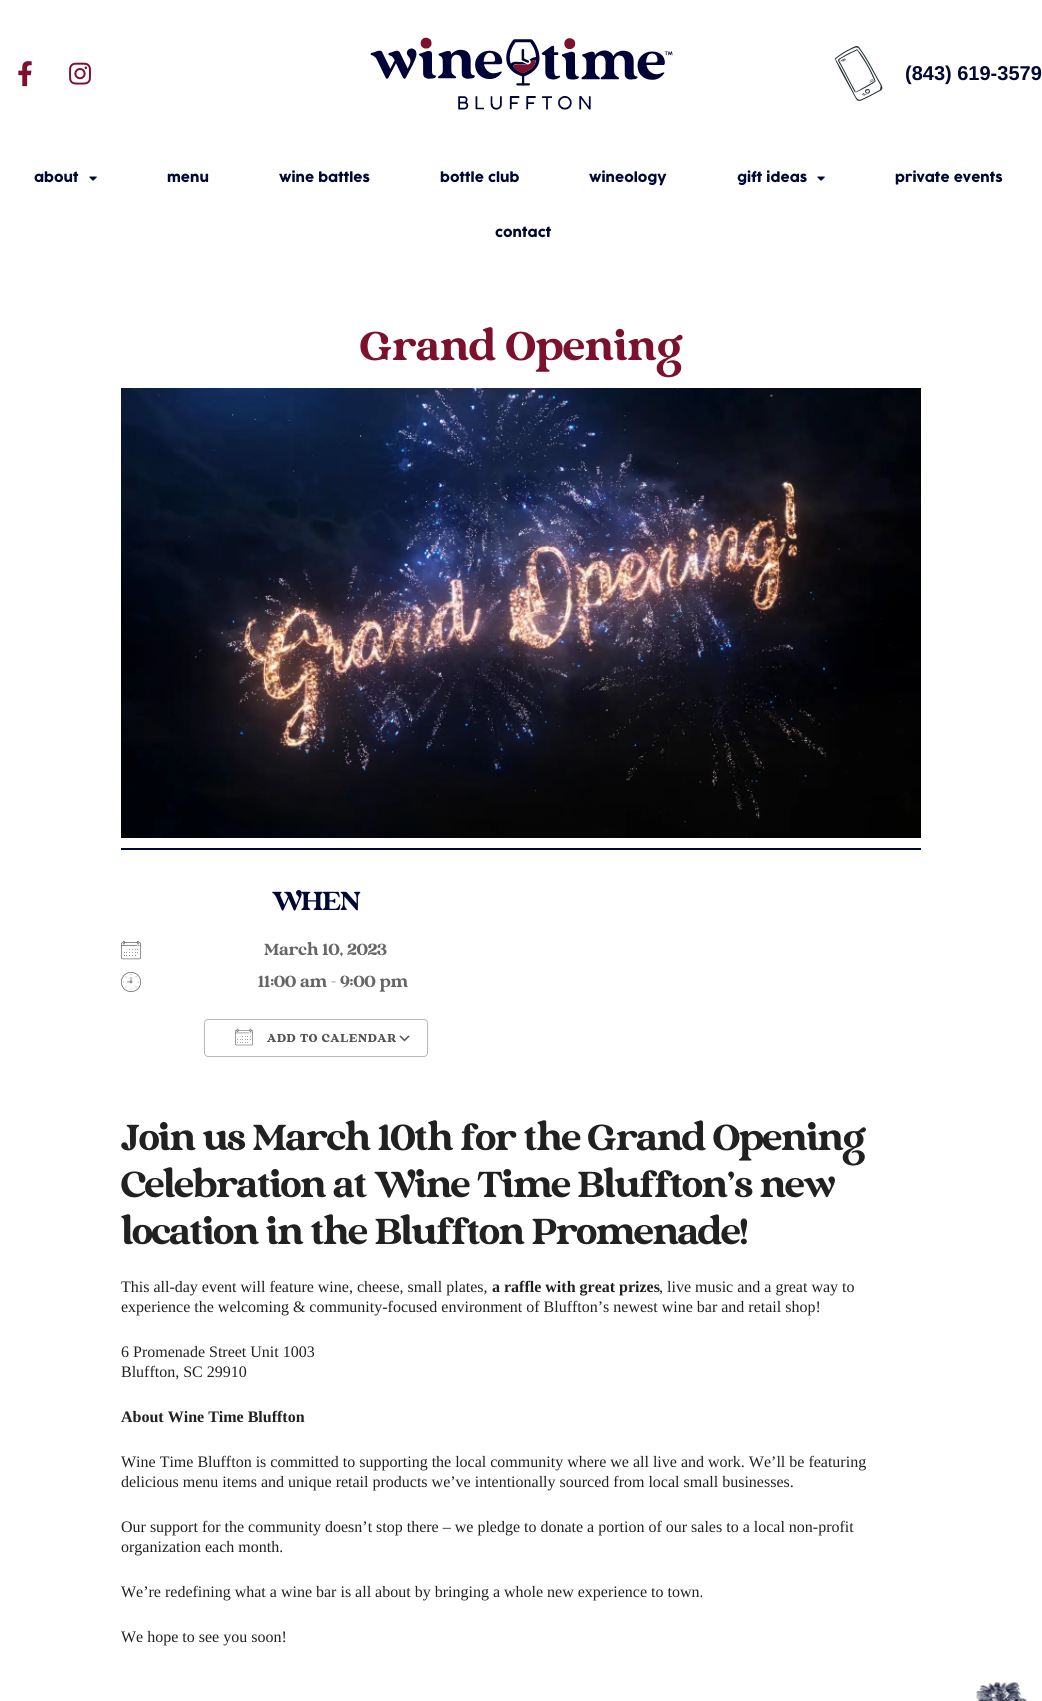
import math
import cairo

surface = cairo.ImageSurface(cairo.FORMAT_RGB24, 1042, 1701)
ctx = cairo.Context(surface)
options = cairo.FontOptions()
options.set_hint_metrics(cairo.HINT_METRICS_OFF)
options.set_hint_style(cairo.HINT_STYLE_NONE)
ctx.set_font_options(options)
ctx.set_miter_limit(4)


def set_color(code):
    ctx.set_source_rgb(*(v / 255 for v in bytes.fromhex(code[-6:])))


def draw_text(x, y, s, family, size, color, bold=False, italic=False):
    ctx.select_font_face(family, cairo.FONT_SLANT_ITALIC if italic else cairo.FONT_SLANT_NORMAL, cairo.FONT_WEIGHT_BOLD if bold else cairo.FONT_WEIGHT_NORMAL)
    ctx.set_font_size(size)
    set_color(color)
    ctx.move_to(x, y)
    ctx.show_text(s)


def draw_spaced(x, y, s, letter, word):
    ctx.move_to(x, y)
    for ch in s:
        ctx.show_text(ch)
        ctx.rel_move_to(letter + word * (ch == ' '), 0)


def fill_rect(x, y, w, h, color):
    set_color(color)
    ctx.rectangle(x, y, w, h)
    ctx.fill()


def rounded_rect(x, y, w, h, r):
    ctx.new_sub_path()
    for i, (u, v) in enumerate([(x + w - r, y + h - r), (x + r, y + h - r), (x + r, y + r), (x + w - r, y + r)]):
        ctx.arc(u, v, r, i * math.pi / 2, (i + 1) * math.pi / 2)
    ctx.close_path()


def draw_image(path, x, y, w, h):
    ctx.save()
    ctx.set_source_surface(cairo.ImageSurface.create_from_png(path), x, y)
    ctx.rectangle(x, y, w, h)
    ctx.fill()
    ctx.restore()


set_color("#ffffff")
ctx.paint()
draw_image("assets/img1.png", 18, 61, 14, 26)
draw_image("assets/img2.png", 69, 62, 22, 23)
draw_image("assets/img3.png", 370, 37, 303, 73)
draw_image("assets/img4.png", 834, 46, 49, 55)
draw_text(905, 80, "(843) 619-3579", "Liberation Sans", 20, "#000934", bold=True)
draw_text(34, 182, "about", "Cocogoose", 13, "#000934")
draw_image("assets/img5.png", 89, 176, 8, 5)
draw_text(167, 182, "menu", "Cocogoose", 13, "#000934")
draw_text(279, 182, "wine battles", "Cocogoose", 13, "#000934")
draw_text(440, 182, "bottle club", "Cocogoose", 13, "#000934")
draw_text(589, 182, "wineology", "Cocogoose", 13, "#000934")
draw_text(737, 182, "gift ideas", "Cocogoose", 13, "#000934")
draw_image("assets/img5.png", 817, 176, 8, 5)
draw_text(895, 182, "private events", "Cocogoose", 13, "#000934")
draw_text(495, 237, "contact", "Cocogoose", 13, "#000934")
draw_text(360, 360, "Grand Opening", "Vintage", 40, "#7c112d")
draw_image("assets/img6.png", 121, 388, 800, 450)
fill_rect(121, 848, 800, 2, "#000934")
ctx.set_font_size(26)
draw_spaced(272, 910, "WHEN", -1, 0)
draw_image("assets/img7.png", 121, 940, 20, 20)
draw_text(264, 955, "March 10, 2023", "Vintage", 16, "#666666")
draw_image("assets/img8.png", 121, 972, 20, 20)
draw_text(258, 987, "11:00 am - 9:00 pm", "Vintage", 16, "#666666")
draw_image("assets/img9.png", 399, 1035, 11, 7)
rounded_rect(204.5, 1019.5, 223, 37, 3.5)
set_color("#bababa")
ctx.set_line_width(1)
ctx.stroke()
draw_image("assets/img10.png", 235, 1028, 18, 18)
ctx.select_font_face("Vintage", cairo.FONT_SLANT_NORMAL, cairo.FONT_WEIGHT_BOLD)
ctx.set_font_size(11)
set_color("#545454")
draw_spaced(267, 1042, "ADD TO CALENDAR", 1, 0)
ctx.select_font_face("Vintage")
ctx.set_font_size(36)
set_color("#212121")
draw_spaced(121, 1150, "Join us March 10th for the Grand Opening", -1, 0)
draw_spaced(121, 1197, "Celebration at Wine Time Bluffton’s new", -1, 0)
draw_spaced(121, 1244, "location in the Bluffton Promenade!", -1, 0)
draw_text(121, 1292, "This all-day event will feature wine, cheese, small plates,", "Liberation Serif", 16, "#212121")
draw_text(492, 1292, "a raffle with great prizes", "Liberation Serif", 16, "#212121", bold=True)
draw_text(659, 1292, ", live music and a great way to", "Liberation Serif", 16, "#212121")
draw_text(121, 1312, "experience the welcoming & community-focused environment of Bluffton’s newest wine bar and retail shop!", "Liberation Serif", 16, "#212121")
draw_text(121, 1357, "6 Promenade Street Unit 1003", "Liberation Serif", 16, "#212121")
draw_text(121, 1377, "Bluffton, SC 29910", "Liberation Serif", 16, "#212121")
draw_text(121, 1422, "About Wine Time Bluffton", "Liberation Serif", 16, "#212121", bold=True)
draw_text(121, 1467, "Wine Time Bluffton is committed to supporting the local community where we all live and work. We’ll be featuring", "Liberation Serif", 16, "#212121")
draw_text(121, 1487, "delicious menu items and unique retail products we’ve intentionally sourced from local small businesses.", "Liberation Serif", 16, "#212121")
draw_text(121, 1532, "Our support for the community doesn’t stop there – we pledge to donate a portion of our sales to a local non-profit", "Liberation Serif", 16, "#212121")
draw_text(121, 1552, "organization each month.", "Liberation Serif", 16, "#212121")
draw_text(121, 1597, "We’re redefining what a wine bar is all about by bringing a whole new experience to town.", "Liberation Serif", 16, "#212121")
draw_text(121, 1642, "We hope to see you soon!", "Liberation Serif", 16, "#212121")
draw_image("assets/img11.png", 975, 1682, 52, 19)
surface.write_to_png("output.png")
